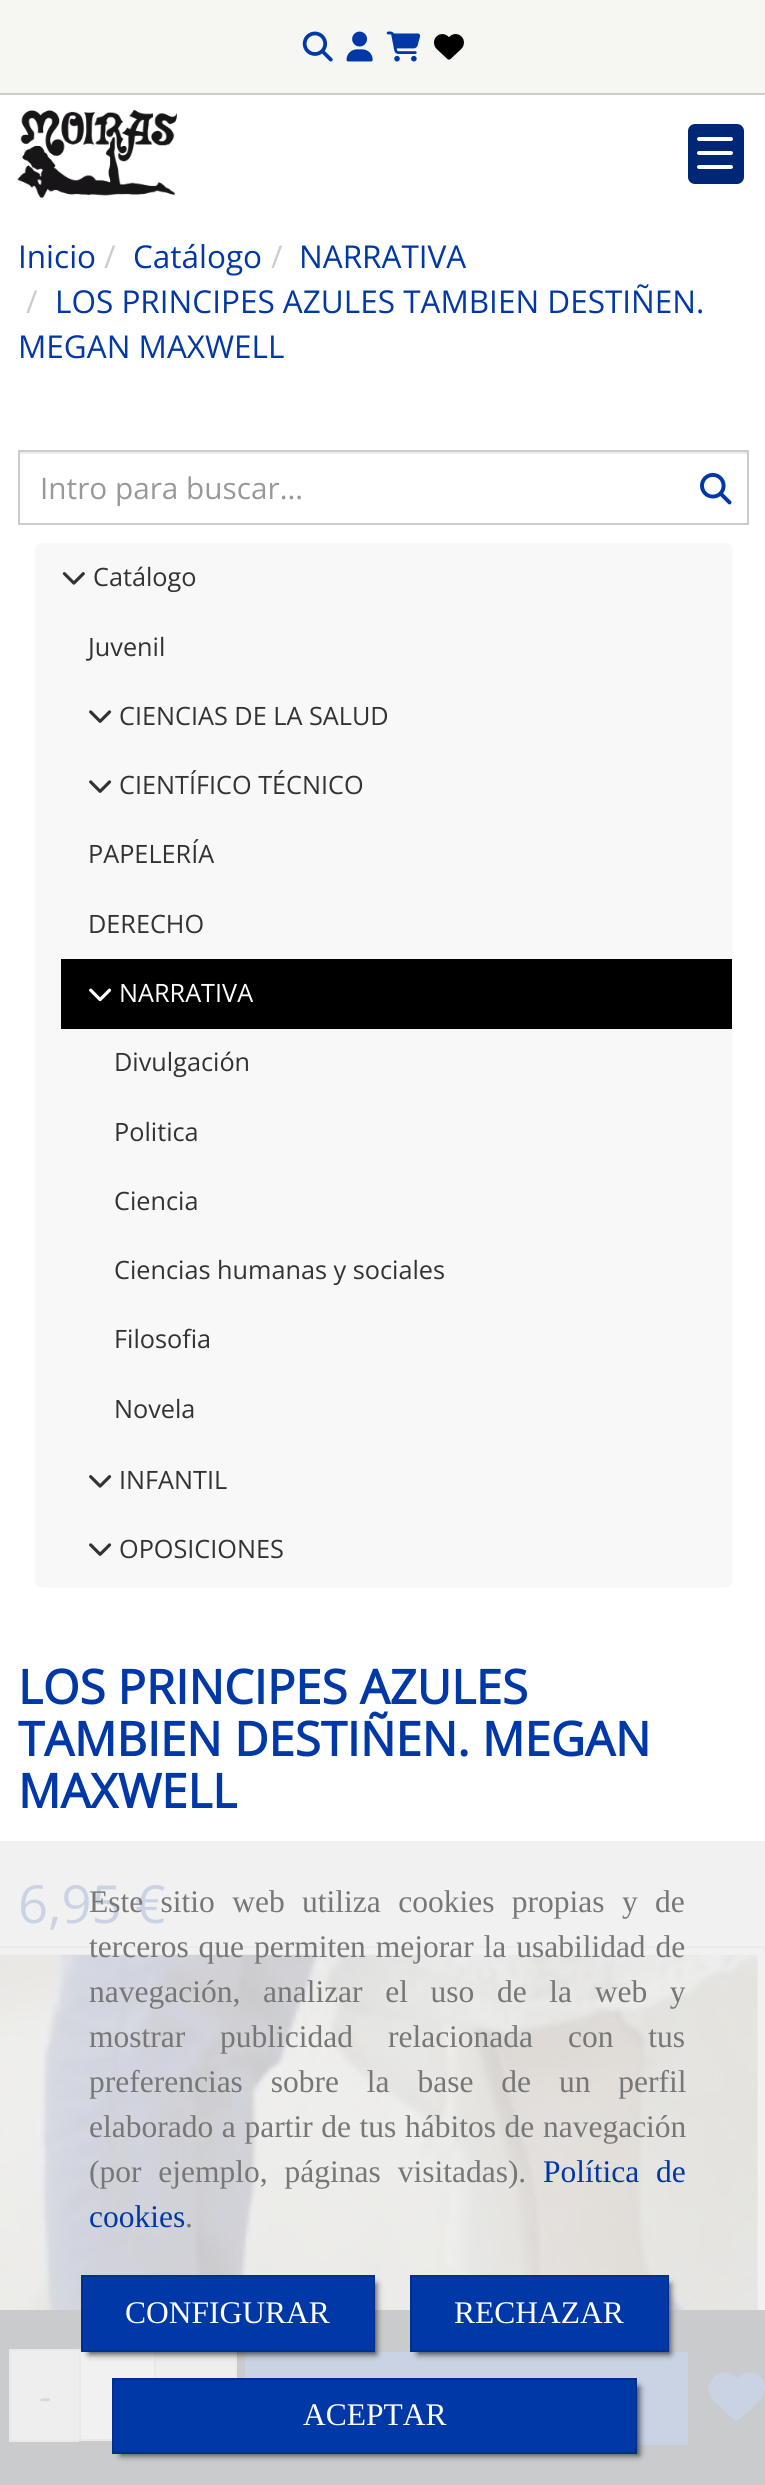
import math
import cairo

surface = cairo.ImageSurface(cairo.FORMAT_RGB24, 765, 2485)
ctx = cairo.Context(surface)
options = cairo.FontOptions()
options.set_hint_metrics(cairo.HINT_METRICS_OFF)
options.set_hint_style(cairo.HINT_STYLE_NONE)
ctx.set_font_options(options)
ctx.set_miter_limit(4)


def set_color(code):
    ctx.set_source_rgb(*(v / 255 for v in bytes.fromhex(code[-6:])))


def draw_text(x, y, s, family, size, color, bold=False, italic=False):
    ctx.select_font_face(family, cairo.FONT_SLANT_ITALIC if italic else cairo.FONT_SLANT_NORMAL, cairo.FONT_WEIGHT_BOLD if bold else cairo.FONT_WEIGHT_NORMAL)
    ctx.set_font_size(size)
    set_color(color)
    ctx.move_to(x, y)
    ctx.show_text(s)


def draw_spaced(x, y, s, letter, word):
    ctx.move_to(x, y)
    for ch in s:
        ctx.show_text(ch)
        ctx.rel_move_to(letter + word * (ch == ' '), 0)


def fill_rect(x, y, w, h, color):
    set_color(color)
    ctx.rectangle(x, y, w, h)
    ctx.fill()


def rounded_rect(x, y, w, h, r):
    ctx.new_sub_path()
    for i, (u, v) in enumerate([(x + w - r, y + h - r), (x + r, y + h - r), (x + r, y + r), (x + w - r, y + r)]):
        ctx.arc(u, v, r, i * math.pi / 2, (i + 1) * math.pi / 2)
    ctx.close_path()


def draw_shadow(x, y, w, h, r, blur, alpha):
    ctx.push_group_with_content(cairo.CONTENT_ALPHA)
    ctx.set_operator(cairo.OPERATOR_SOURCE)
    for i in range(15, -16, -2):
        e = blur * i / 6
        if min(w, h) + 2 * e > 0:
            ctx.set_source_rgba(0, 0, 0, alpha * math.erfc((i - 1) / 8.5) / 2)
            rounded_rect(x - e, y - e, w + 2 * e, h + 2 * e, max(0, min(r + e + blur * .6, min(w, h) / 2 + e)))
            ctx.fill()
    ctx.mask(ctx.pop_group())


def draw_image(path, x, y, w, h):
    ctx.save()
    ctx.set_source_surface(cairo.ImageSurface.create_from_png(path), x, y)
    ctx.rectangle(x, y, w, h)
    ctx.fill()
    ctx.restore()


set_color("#ffffff")
ctx.paint()
fill_rect(0, 1841, 765, 469, "#f1f1f1")
fill_rect(0, 0, 765, 93, "#f6f6f3")
fill_rect(0, 93, 765, 2, "#cccccc")
draw_image("assets/img1.png", 302, 31, 31, 31)
draw_image("assets/img2.png", 346, 31, 27, 31)
draw_image("assets/img3.png", 386, 31, 35, 31)
draw_image("assets/img4.png", 434, 34, 30, 26)
draw_image("assets/img5.png", 17, 110, 160, 88)
set_color("#002775")
rounded_rect(688, 124, 56, 60, 7)
ctx.fill()
set_color("#ffffff")
rounded_rect(697, 151, 36, 4, 2)
ctx.fill()
rounded_rect(697, 137, 36, 4, 2)
ctx.fill()
rounded_rect(697, 165, 36, 4, 2)
ctx.fill()
draw_text(18, 268, "Inicio", "Open Sans", 31.5, "#0038a8")
draw_text(104, 268, "/", "Open Sans", 31.5, "#cccccc")
draw_text(133, 268, "Catálogo", "Open Sans", 31.5, "#0038a8")
draw_text(271, 268, "/", "Open Sans", 31.5, "#cccccc")
draw_text(299, 268, "NARRATIVA", "Open Sans", 31.5, "#0038a8")
draw_text(26, 313, "/", "Open Sans", 31.5, "#cccccc")
draw_text(55, 313, "LOS PRINCIPES AZULES TAMBIEN DESTIÑEN.", "Open Sans", 31.5, "#0038a8")
draw_text(18, 358, "MEGAN MAXWELL", "Open Sans", 31.5, "#0038a8")
fill_rect(19, 452, 728, 2, "#ececec")
ctx.rectangle(19, 451, 729, 73)
set_color("#cccccc")
ctx.stroke()
draw_text(40, 499, "Intro para buscar...", "Open Sans", 29.75, "#999999")
draw_image("assets/img6.png", 700, 472, 32, 33)
set_color("#000000")
draw_shadow(35, 544, 697, 1043, 7, 1, 0.05)
set_color("#f8f8f8")
rounded_rect(35, 543, 697, 1043, 7)
ctx.fill()
draw_image("assets/img7.png", 62, 572, 23, 13)
draw_text(93, 586, "Catálogo", "Open Sans", 25.25, "#333333")
draw_text(88, 656, "Juvenil", "Open Sans", 25.25, "#333333")
draw_image("assets/img8.png", 89, 710, 23, 13)
draw_text(119, 725, "CIENCIAS DE LA SALUD", "Open Sans", 25.25, "#333333")
draw_image("assets/img8.png", 89, 780, 23, 13)
draw_text(119, 794, "CIENTÍFICO TÉCNICO", "Open Sans", 25.25, "#333333")
draw_text(88, 863, "PAPELERÍA", "Open Sans", 25.25, "#333333")
draw_text(88, 933, "DERECHO", "Open Sans", 25.25, "#333333")
fill_rect(61, 959, 671, 70, "#000000")
draw_image("assets/img9.png", 89, 988, 23, 14)
draw_text(119, 1002, "NARRATIVA", "Open Sans", 25.25, "#ffffff")
draw_text(114, 1071, "Divulgación", "Open Sans", 25.25, "#333333")
draw_text(114, 1141, "Politica", "Open Sans", 25.25, "#333333")
draw_text(114, 1210, "Ciencia", "Open Sans", 25.25, "#333333")
draw_text(114, 1279, "Ciencias humanas y sociales", "Open Sans", 25.25, "#333333")
draw_text(114, 1348, "Filosofia", "Open Sans", 25.25, "#333333")
draw_text(114, 1418, "Novela", "Open Sans", 25.25, "#333333")
draw_image("assets/img10.png", 89, 1475, 23, 13)
draw_text(119, 1489, "INFANTIL", "Open Sans", 25.25, "#333333")
draw_image("assets/img8.png", 89, 1543, 23, 13)
draw_text(119, 1558, "OPOSICIONES", "Open Sans", 25.25, "#333333")
draw_text(18, 1704, "LOS PRINCIPES AZULES", "Open Sans", 47.25, "#0038a8", bold=True)
draw_text(18, 1756, "TAMBIEN DESTIÑEN. MEGAN", "Open Sans", 47.25, "#0038a8", bold=True)
draw_text(18, 1808, "MAXWELL", "Open Sans", 47.25, "#0038a8", bold=True)
draw_text(18, 1923, "6,95 €", "Open Sans", 52.5, "#cad3e4")
rounded_rect(-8, 1947, 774, 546, 6)
set_color("#ebebeb")
ctx.stroke()
draw_image("assets/img11.png", 0, 1954, 758, 356)
fill_rect(0, 2310, 765, 175, "#cacbcd")
fill_rect(81, 2352, 73, 87, "#f1f1f1")
ctx.rectangle(80, 2350, 75, 90)
set_color("#e9e9e9")
ctx.stroke()
fill_rect(156, 2352, 79, 26, "#eeeeee")
fill_rect(235, 2349, 2, 29, "#e9e9e9")
fill_rect(11, 2351, 68, 89, "#eeeeee")
fill_rect(9, 2349, 70, 2, "#e9e9e9")
fill_rect(9, 2440, 70, 2, "#e9e9e9")
fill_rect(9, 2349, 2, 92, "#e9e9e9")
draw_text(39, 2410, "-", "Open Sans", 38, "#d7d7d7")
fill_rect(245, 2352, 443, 93, "#cad3e4")
ctx.new_path()
ctx.move_to(714, 2401)
ctx.line_to(730, 2416)
ctx.curve_to(736, 2422, 737, 2422, 743, 2416)
ctx.line_to(750, 2410)
ctx.curve_to(754, 2405, 761, 2401, 763, 2395)
ctx.curve_to(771, 2378, 751, 2364, 737, 2378)
ctx.curve_to(720, 2361, 698, 2386, 714, 2401)
ctx.close_path()
ctx.fill()
ctx.select_font_face("Liberation Serif")
ctx.set_font_size(31.5)
set_color("#777777")
draw_spaced(89, 1912, "Este sitio web utiliza cookies propias y de", 0, 9.5)
draw_spaced(89, 1957, "terceros que permiten mejorar la usabilidad de", 0, 2)
draw_spaced(89, 2002, "navegación, analizar el uso de la web y", 0, 14.75)
draw_spaced(89, 2047, "mostrar publicidad relacionada con tus", 0, 27)
draw_spaced(89, 2092, "preferencias sobre la base de un perfil", 0, 20)
draw_spaced(89, 2137, "elaborado a partir de tus hábitos de navegación", 0, 0.75)
draw_spaced(89, 2182, "(por ejemplo, páginas visitadas).", 0, 9)
set_color("#0038a8")
draw_spaced(543, 2182, "Política de", 0, 9)
draw_text(89, 2227, "cookies", "Liberation Serif", 31.5, "#0038a8")
draw_text(185, 2227, ".", "Liberation Serif", 31.5, "#777777")
set_color("#000000")
draw_shadow(89, 2284, 287, 70, 0, 3.5, 0.75)
set_color("#0038a8")
ctx.rectangle(82, 2276, 292, 75)
ctx.fill_preserve()
set_color("#00308f")
ctx.stroke()
draw_text(125, 2323, "CONFIGURAR", "Liberation Serif", 31.5, "#ffffff")
set_color("#000000")
draw_shadow(418, 2284, 252, 70, 0, 3.5, 0.75)
set_color("#0038a8")
ctx.rectangle(411, 2276, 257, 75)
ctx.fill_preserve()
set_color("#00308f")
ctx.stroke()
draw_text(454, 2323, "RECHAZAR", "Liberation Serif", 31.5, "#ffffff")
set_color("#000000")
draw_shadow(121, 2387, 518, 68, 0, 3.5, 0.75)
set_color("#0038a8")
ctx.rectangle(113, 2379, 523, 74)
ctx.fill_preserve()
set_color("#00308f")
ctx.stroke()
draw_text(303, 2425, "ACEPTAR", "Liberation Serif", 31.5, "#ffffff")
surface.write_to_png("output.png")
